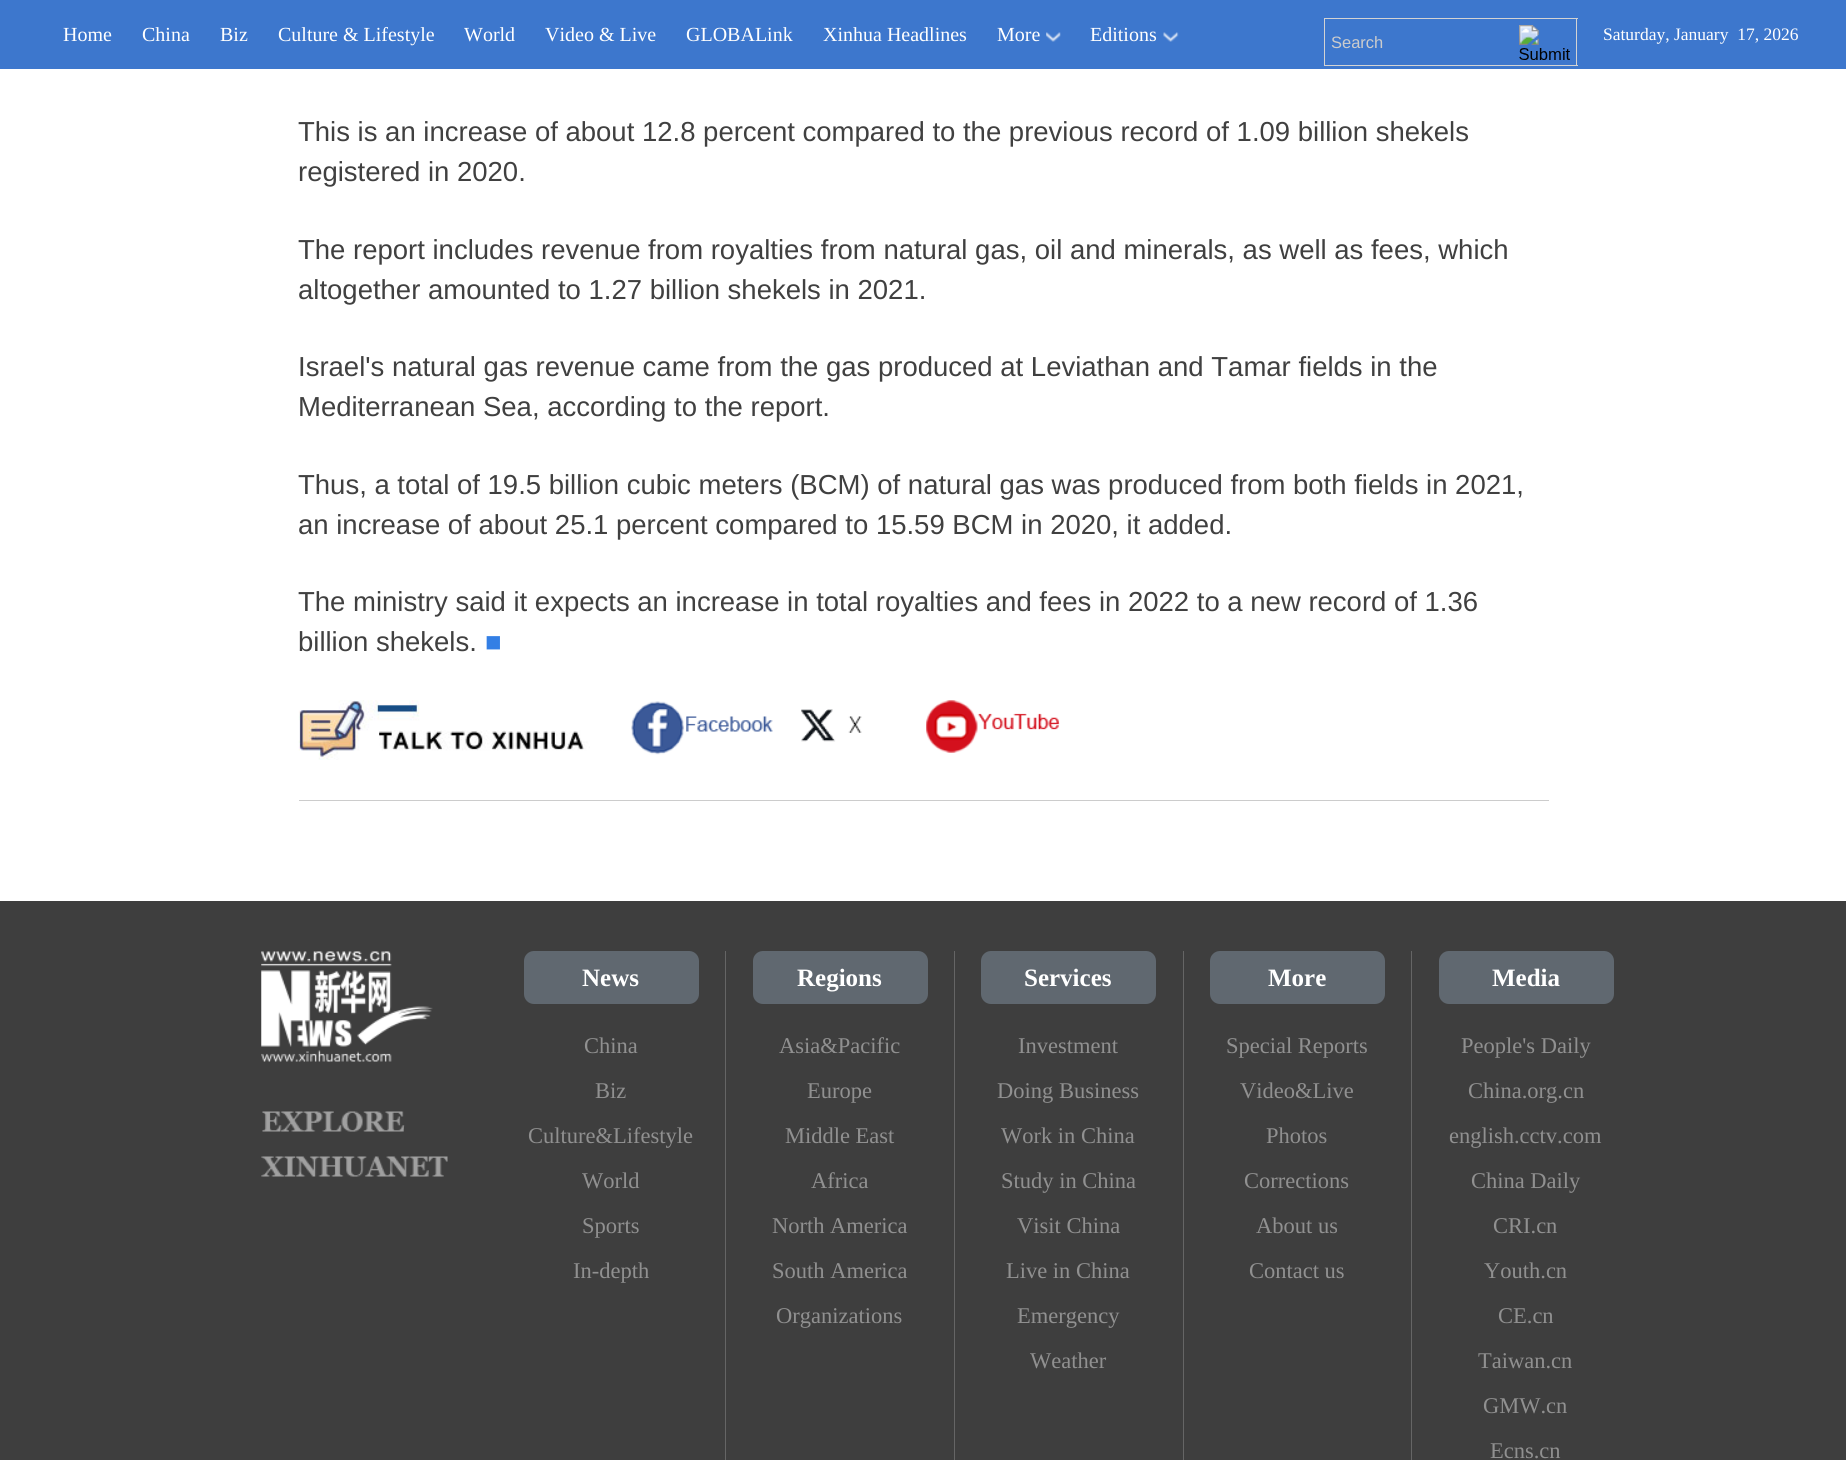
import math
import cairo

surface = cairo.ImageSurface(cairo.FORMAT_RGB24, 1846, 1460)
ctx = cairo.Context(surface)
options = cairo.FontOptions()
options.set_hint_metrics(cairo.HINT_METRICS_OFF)
options.set_hint_style(cairo.HINT_STYLE_NONE)
ctx.set_font_options(options)
ctx.set_miter_limit(4)


def set_color(code):
    ctx.set_source_rgb(*(v / 255 for v in bytes.fromhex(code[-6:])))


def draw_text(x, y, s, family, size, color, bold=False, italic=False):
    ctx.select_font_face(family, cairo.FONT_SLANT_ITALIC if italic else cairo.FONT_SLANT_NORMAL, cairo.FONT_WEIGHT_BOLD if bold else cairo.FONT_WEIGHT_NORMAL)
    ctx.set_font_size(size)
    set_color(color)
    ctx.move_to(x, y)
    ctx.show_text(s)


def fill_rect(x, y, w, h, color):
    set_color(color)
    ctx.rectangle(x, y, w, h)
    ctx.fill()


def rounded_rect(x, y, w, h, r):
    ctx.new_sub_path()
    for i, (u, v) in enumerate([(x + w - r, y + h - r), (x + r, y + h - r), (x + r, y + r), (x + w - r, y + r)]):
        ctx.arc(u, v, r, i * math.pi / 2, (i + 1) * math.pi / 2)
    ctx.close_path()


def draw_image(path, x, y, w, h):
    ctx.save()
    ctx.set_source_surface(cairo.ImageSurface.create_from_png(path), x, y)
    ctx.rectangle(x, y, w, h)
    ctx.fill()
    ctx.restore()


set_color("#ffffff")
ctx.paint()
fill_rect(0, 0, 1846, 69, "#3d77cd")
draw_text(63, 41, "Home", "Liberation Serif", 20, "#ffffff")
draw_text(142, 41, "China", "Liberation Serif", 20, "#ffffff")
draw_text(220, 41, "Biz", "Liberation Serif", 20, "#ffffff")
draw_text(278, 41, "Culture & Lifestyle", "Liberation Serif", 20, "#ffffff")
draw_text(464, 41, "World", "Liberation Serif", 20, "#ffffff")
draw_text(545, 41, "Video & Live", "Liberation Serif", 20, "#ffffff")
draw_text(686, 41, "GLOBALink", "Liberation Serif", 20, "#ffffff")
draw_text(823, 41, "Xinhua Headlines", "Liberation Serif", 20, "#ffffff")
draw_text(997, 41, "More", "Liberation Serif", 20, "#ffffff")
draw_image("assets/img1.png", 1046, 32, 15, 10)
draw_text(1090, 41, "Editions", "Liberation Serif", 20, "#ffffff")
draw_image("assets/img2.png", 1163, 32, 16, 10)
fill_rect(1324, 18, 254, 1, "#d3d3d3")
fill_rect(1576, 18, 1, 48, "#d3d3d3")
fill_rect(1324, 65, 254, 1, "#d3d3d3")
draw_image("assets/img3.png", 1519, 25, 51, 35)
fill_rect(1324, 18, 1, 48, "#d3d3d3")
draw_text(1331, 48, "Search", "Liberation Sans", 16.5, "#cccccc")
draw_text(1603, 40, "Saturday, January  17, 2026", "Liberation Serif", 17.5, "#ffffff")
fill_rect(299, 800, 1250, 1, "#cccccc")
draw_text(298, 141, "This is an increase of about 12.8 percent compared to the previous record of 1.09 billion shekels", "Liberation Sans", 27.5, "#404040")
draw_text(298, 181, "registered in 2020.", "Liberation Sans", 27.5, "#404040")
draw_text(298, 259, "The report includes revenue from royalties from natural gas, oil and minerals, as well as fees, which", "Liberation Sans", 27.5, "#404040")
draw_text(298, 299, "altogether amounted to 1.27 billion shekels in 2021.", "Liberation Sans", 27.5, "#404040")
draw_text(298, 376, "Israel's natural gas revenue came from the gas produced at Leviathan and Tamar fields in the", "Liberation Sans", 27.5, "#404040")
draw_text(298, 416, "Mediterranean Sea, according to the report.", "Liberation Sans", 27.5, "#404040")
draw_text(298, 494, "Thus, a total of 19.5 billion cubic meters (BCM) of natural gas was produced from both fields in 2021,", "Liberation Sans", 27.5, "#404040")
draw_text(298, 534, "an increase of about 25.1 percent compared to 15.59 BCM in 2020, it added.", "Liberation Sans", 27.5, "#404040")
draw_text(298, 611, "The ministry said it expects an increase in total royalties and fees in 2022 to a new record of 1.36", "Liberation Sans", 27.5, "#404040")
draw_text(298, 651, "billion shekels.", "Liberation Sans", 27.5, "#404040")
draw_text(485, 651, "■", "Liberation Sans", 27.5, "#337fe5")
draw_image("assets/img4.png", 298, 700, 292, 60)
draw_image("assets/img5.png", 631, 701, 142, 54)
draw_image("assets/img6.png", 801, 709, 61, 33)
draw_image("assets/img7.png", 926, 700, 134, 53)
fill_rect(0, 901, 1846, 559, "#3e3e3e")
draw_image("assets/img8.png", 261, 951, 172, 111)
draw_image("assets/img9.png", 261, 1111, 187, 66)
fill_rect(725, 951, 1, 509, "#656565")
set_color("#606870")
rounded_rect(524, 951, 175, 53, 10)
ctx.fill()
draw_text(582, 986, "News", "Liberation Serif", 25, "#ffffff", bold=True)
draw_text(584, 1053, "China", "Liberation Serif", 22.5, "#909090")
draw_text(595, 1098, "Biz", "Liberation Serif", 22.5, "#909090")
draw_text(528, 1143, "Culture&Lifestyle", "Liberation Serif", 22.5, "#909090")
draw_text(582, 1188, "World", "Liberation Serif", 22.5, "#909090")
draw_text(582, 1233, "Sports", "Liberation Serif", 22.5, "#909090")
draw_text(573, 1278, "In-depth", "Liberation Serif", 22.5, "#909090")
fill_rect(954, 951, 1, 509, "#656565")
set_color("#606870")
rounded_rect(753, 951, 175, 53, 10)
ctx.fill()
draw_text(797, 986, "Regions", "Liberation Serif", 25, "#ffffff", bold=True)
draw_text(779, 1053, "Asia&Pacific", "Liberation Serif", 22.5, "#909090")
draw_text(807, 1098, "Europe", "Liberation Serif", 22.5, "#909090")
draw_text(785, 1143, "Middle East", "Liberation Serif", 22.5, "#909090")
draw_text(811, 1188, "Africa", "Liberation Serif", 22.5, "#909090")
draw_text(772, 1233, "North America", "Liberation Serif", 22.5, "#909090")
draw_text(772, 1278, "South America", "Liberation Serif", 22.5, "#909090")
draw_text(776, 1323, "Organizations", "Liberation Serif", 22.5, "#909090")
fill_rect(1183, 951, 1, 509, "#656565")
set_color("#606870")
rounded_rect(981, 951, 175, 53, 10)
ctx.fill()
draw_text(1024, 986, "Services", "Liberation Serif", 25, "#ffffff", bold=True)
draw_text(1018, 1053, "Investment", "Liberation Serif", 22.5, "#909090")
draw_text(997, 1098, "Doing Business", "Liberation Serif", 22.5, "#909090")
draw_text(1001, 1143, "Work in China", "Liberation Serif", 22.5, "#909090")
draw_text(1001, 1188, "Study in China", "Liberation Serif", 22.5, "#909090")
draw_text(1017, 1233, "Visit China", "Liberation Serif", 22.5, "#909090")
draw_text(1006, 1278, "Live in China", "Liberation Serif", 22.5, "#909090")
draw_text(1017, 1323, "Emergency", "Liberation Serif", 22.5, "#909090")
draw_text(1030, 1368, "Weather", "Liberation Serif", 22.5, "#909090")
fill_rect(1411, 951, 1, 509, "#656565")
set_color("#606870")
rounded_rect(1210, 951, 175, 53, 10)
ctx.fill()
draw_text(1268, 986, "More", "Liberation Serif", 25, "#ffffff", bold=True)
draw_text(1226, 1053, "Special Reports", "Liberation Serif", 22.5, "#909090")
draw_text(1240, 1098, "Video&Live", "Liberation Serif", 22.5, "#909090")
draw_text(1266, 1143, "Photos", "Liberation Serif", 22.5, "#909090")
draw_text(1244, 1188, "Corrections", "Liberation Serif", 22.5, "#909090")
draw_text(1256, 1233, "About us", "Liberation Serif", 22.5, "#909090")
draw_text(1249, 1278, "Contact us", "Liberation Serif", 22.5, "#909090")
set_color("#606870")
rounded_rect(1439, 951, 175, 53, 10)
ctx.fill()
draw_text(1492, 986, "Media", "Liberation Serif", 25, "#ffffff", bold=True)
draw_text(1461, 1053, "People's Daily", "Liberation Serif", 22.5, "#909090")
draw_text(1468, 1098, "China.org.cn", "Liberation Serif", 22.5, "#909090")
draw_text(1449, 1143, "english.cctv.com", "Liberation Serif", 22.5, "#909090")
draw_text(1471, 1188, "China Daily", "Liberation Serif", 22.5, "#909090")
draw_text(1493, 1233, "CRI.cn", "Liberation Serif", 22.5, "#909090")
draw_text(1484, 1278, "Youth.cn", "Liberation Serif", 22.5, "#909090")
draw_text(1498, 1323, "CE.cn", "Liberation Serif", 22.5, "#909090")
draw_text(1478, 1368, "Taiwan.cn", "Liberation Serif", 22.5, "#909090")
draw_text(1483, 1413, "GMW.cn", "Liberation Serif", 22.5, "#909090")
draw_text(1490, 1458, "Ecns.cn", "Liberation Serif", 22.5, "#909090")
surface.write_to_png("output.png")
